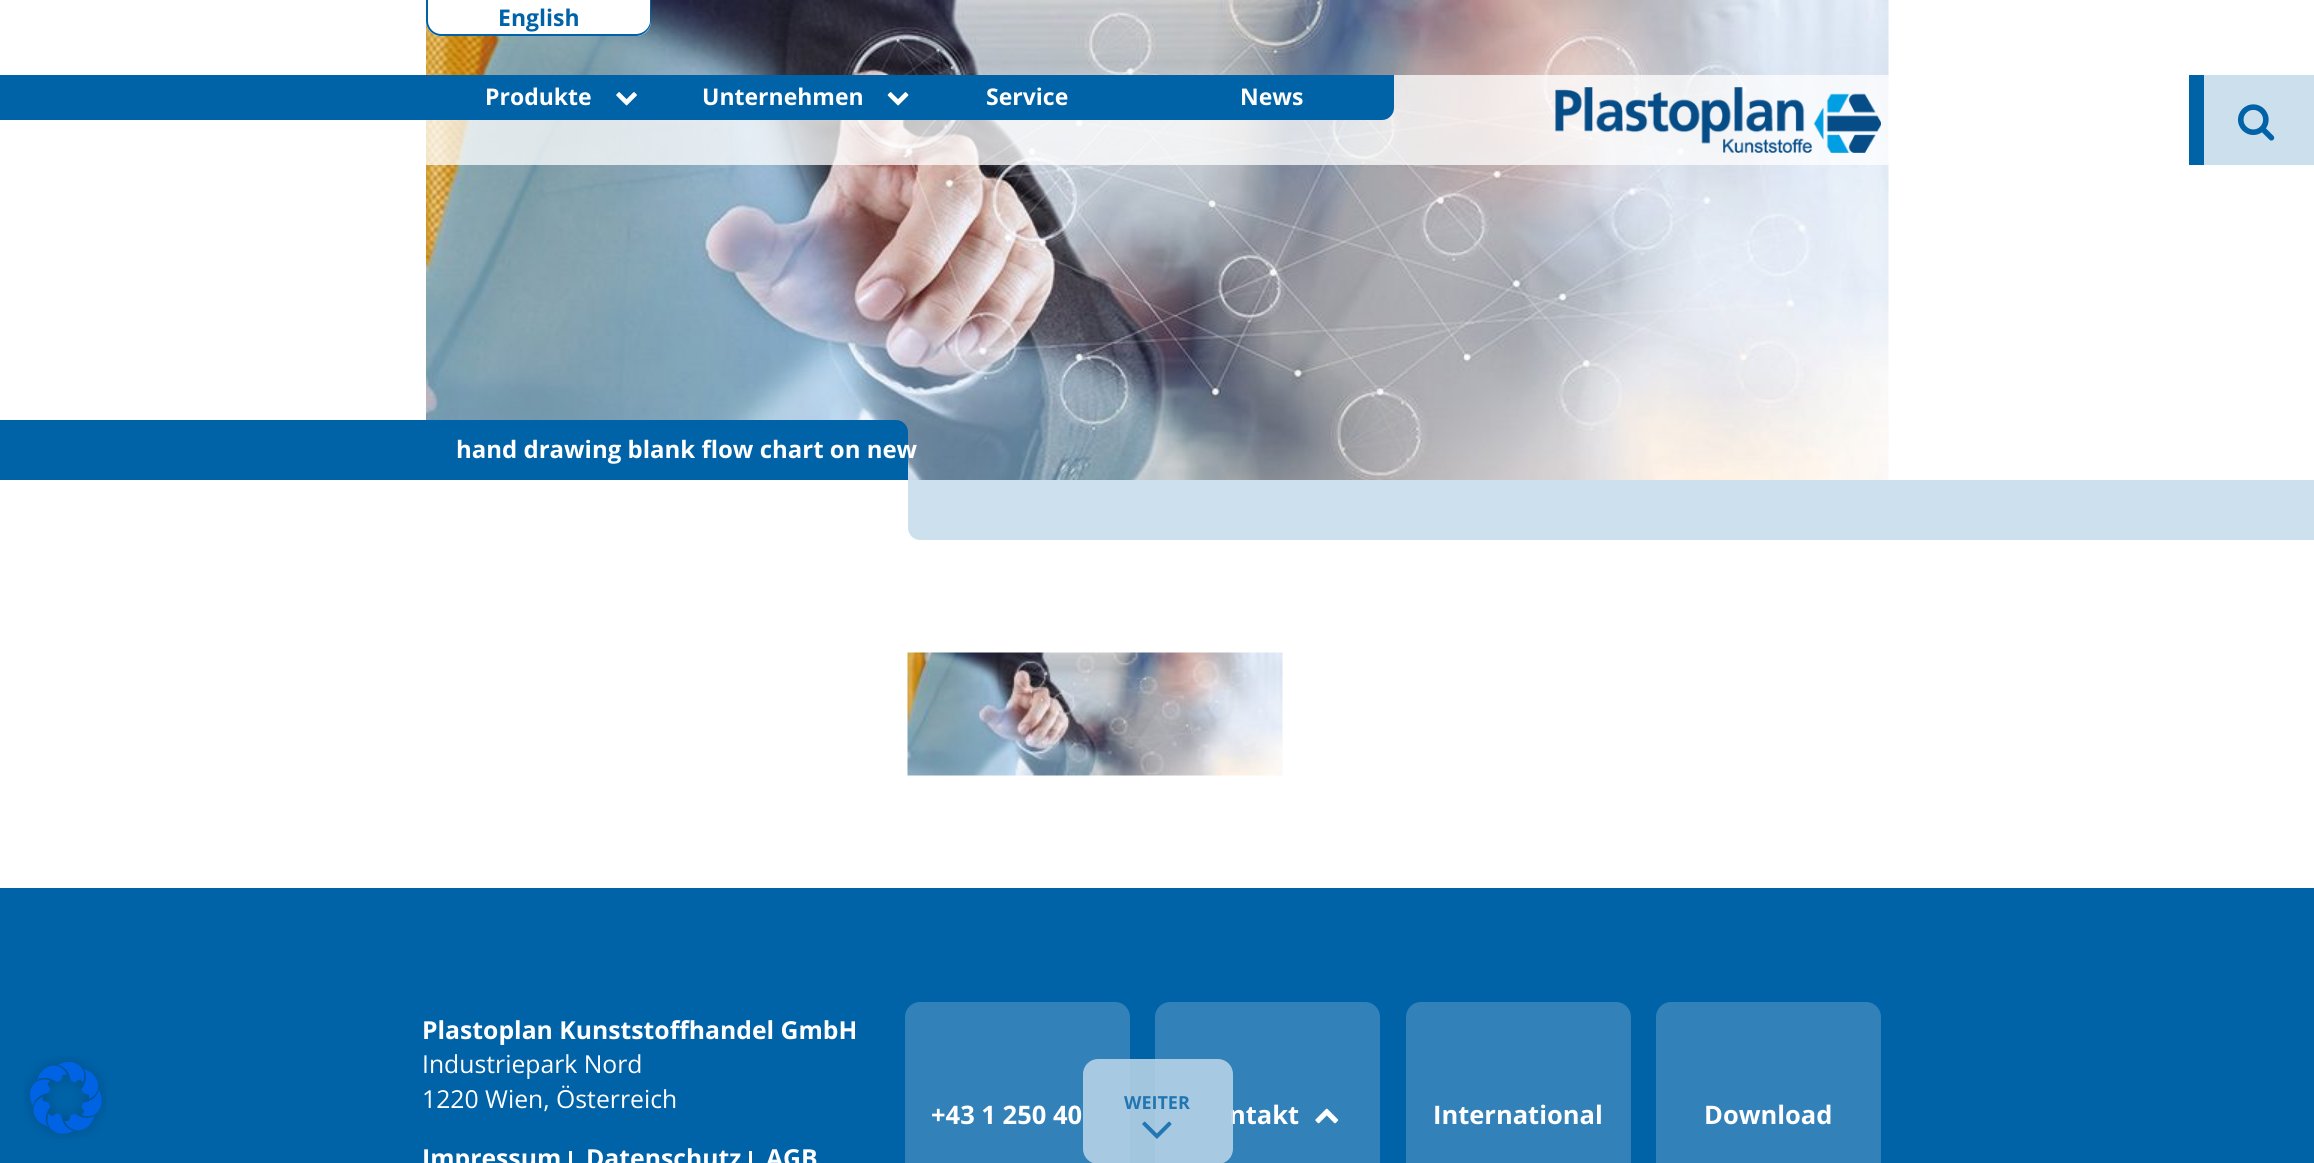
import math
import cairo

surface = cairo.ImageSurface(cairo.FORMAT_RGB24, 2314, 1163)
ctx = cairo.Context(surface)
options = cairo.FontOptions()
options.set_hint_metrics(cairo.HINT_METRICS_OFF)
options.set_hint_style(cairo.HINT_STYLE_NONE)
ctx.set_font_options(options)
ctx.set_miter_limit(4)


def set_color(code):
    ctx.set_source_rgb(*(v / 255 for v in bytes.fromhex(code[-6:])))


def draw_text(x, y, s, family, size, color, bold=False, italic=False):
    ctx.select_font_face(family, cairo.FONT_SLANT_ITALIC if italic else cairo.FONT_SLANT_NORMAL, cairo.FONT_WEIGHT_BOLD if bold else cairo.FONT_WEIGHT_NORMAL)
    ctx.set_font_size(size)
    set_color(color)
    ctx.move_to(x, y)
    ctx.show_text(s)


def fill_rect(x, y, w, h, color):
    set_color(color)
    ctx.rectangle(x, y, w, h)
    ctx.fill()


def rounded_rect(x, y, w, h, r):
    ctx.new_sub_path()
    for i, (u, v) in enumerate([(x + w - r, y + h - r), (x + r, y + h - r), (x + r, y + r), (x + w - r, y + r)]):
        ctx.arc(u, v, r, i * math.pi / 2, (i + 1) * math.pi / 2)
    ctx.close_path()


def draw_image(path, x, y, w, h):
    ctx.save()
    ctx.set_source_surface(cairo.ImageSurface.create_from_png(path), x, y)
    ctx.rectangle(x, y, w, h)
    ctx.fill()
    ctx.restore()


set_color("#ffffff")
ctx.paint()
draw_image("assets/img1.png", 426, 0, 1463, 480)
fill_rect(0, 420, 426, 60, "#0062a7")
fill_rect(1889, 480, 425, 60, "#cce0ed")
set_color("#ffffff")
ctx.new_path()
ctx.move_to(426, -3)
ctx.line_to(651, -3)
ctx.line_to(651, 21)
ctx.curve_to(651, 29.5, 644.5, 36, 636, 36)
ctx.line_to(441, 36)
ctx.curve_to(432.5, 36, 426, 29.5, 426, 21)
ctx.close_path()
ctx.fill()
set_color("#0062a7")
ctx.set_fill_rule(cairo.FILL_RULE_EVEN_ODD)
ctx.new_path()
ctx.move_to(426, -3)
ctx.line_to(651, -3)
ctx.line_to(651, 21)
ctx.curve_to(651, 29, 644, 36, 636, 36)
ctx.line_to(441, 36)
ctx.curve_to(433, 36, 426, 29, 426, 21)
ctx.close_path()
ctx.move_to(428, -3)
ctx.line_to(650, -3)
ctx.line_to(650, 21)
ctx.curve_to(650, 28, 643, 34, 636, 34)
ctx.line_to(441, 34)
ctx.curve_to(434, 34, 428, 28, 428, 21)
ctx.close_path()
ctx.fill()
draw_text(498, 26, "English", "Open Sans", 23, "#0062a7", bold=True)
ctx.set_source_rgba(1, 1, 1, 0.75)
ctx.rectangle(426, 75, 1463, 90)
ctx.fill()
set_color("#0062a7")
ctx.new_path()
ctx.move_to(426, 75)
ctx.line_to(1394, 75)
ctx.line_to(1394, 108)
ctx.curve_to(1394, 114.5, 1388.5, 120, 1382, 120)
ctx.line_to(426, 120)
ctx.close_path()
ctx.fill()
fill_rect(0, 75, 426, 45, "#0062a7")
draw_text(485, 105, "Produkte", "Open Sans", 23, "#ffffff", bold=True)
draw_image("assets/img2.png", 616, 92, 21, 14)
draw_text(702, 105, "Unternehmen", "Open Sans", 23, "#ffffff", bold=True)
draw_image("assets/img3.png", 887, 92, 22, 14)
draw_text(986, 105, "Service", "Open Sans", 23, "#ffffff", bold=True)
draw_text(1240, 105, "News", "Open Sans", 23, "#ffffff", bold=True)
draw_image("assets/img4.png", 1555, 87, 326, 66)
fill_rect(2189, 75, 15, 90, "#0062a7")
fill_rect(2204, 75, 110, 90, "#ccdfed")
draw_image("assets/img5.png", 2238, 104, 37, 37)
set_color("#0062a7")
ctx.new_path()
ctx.move_to(426, 420)
ctx.line_to(896, 420)
ctx.curve_to(902.5, 420, 908, 425.5, 908, 432)
ctx.line_to(908, 480)
ctx.line_to(426, 480)
ctx.close_path()
ctx.fill()
draw_text(456, 458, "hand drawing blank flow chart on new", "Open Sans", 24, "#ffffff", bold=True)
set_color("#cce0ed")
ctx.new_path()
ctx.move_to(908, 480)
ctx.line_to(1889, 480)
ctx.line_to(1889, 540)
ctx.line_to(920, 540)
ctx.curve_to(913.5, 540, 908, 534.5, 908, 528)
ctx.close_path()
ctx.fill()
draw_image("assets/img6.png", 907, 652, 376, 124)
fill_rect(0, 888, 2314, 275, "#0062a7")
draw_image("assets/img7.png", 24, 1056, 83, 83)
draw_text(422, 1039, "Plastoplan Kunststoffhandel GmbH", "Open Sans", 24.75, "#ffffff", bold=True)
draw_text(422, 1073, "Industriepark Nord", "Open Sans", 24.75, "#ffffff")
draw_text(422, 1108, "1220 Wien, Österreich", "Open Sans", 24.75, "#ffffff")
draw_text(422, 1167, "Impressum", "Open Sans", 24.75, "#ffffff", bold=True)
fill_rect(569, 1151, 3, 12, "#ffffff")
draw_text(586, 1167, "Datenschutz", "Open Sans", 24.75, "#ffffff", bold=True)
fill_rect(749, 1151, 3, 12, "#ffffff")
draw_text(766, 1167, "AGB", "Open Sans", 24.75, "#ffffff", bold=True)
set_color("#3381b9")
rounded_rect(905, 1002, 225, 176, 15)
ctx.fill()
draw_text(931, 1124, "+43 1 250 40", "Open Sans", 25.5, "#ffffff", bold=True)
set_color("#3381b9")
rounded_rect(1155, 1002, 225, 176, 15)
ctx.fill()
draw_text(1229, 1124, "ntakt", "Open Sans", 25.5, "#ffffff", bold=True)
draw_image("assets/img8.png", 1315, 1108, 24, 16)
set_color("#3381b9")
rounded_rect(1406, 1002, 225, 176, 15)
ctx.fill()
draw_text(1433, 1124, "International", "Open Sans", 25.5, "#ffffff", bold=True)
set_color("#3381b9")
rounded_rect(1656, 1002, 225, 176, 15)
ctx.fill()
draw_text(1704, 1124, "Download", "Open Sans", 25.5, "#ffffff", bold=True)
ctx.set_source_rgba(0, 0.384, 0.655, 0.8)
rounded_rect(1083, 1059, 150, 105, 15)
ctx.fill()
ctx.set_source_rgba(1, 1, 1, 0.64)
rounded_rect(1083, 1059, 150, 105, 15)
ctx.fill()
draw_text(1124, 1109, "WEITER", "Open Sans", 18, "#2176b2", bold=True)
draw_image("assets/img9.png", 1142, 1121, 30, 18)
surface.write_to_png("output.png")
